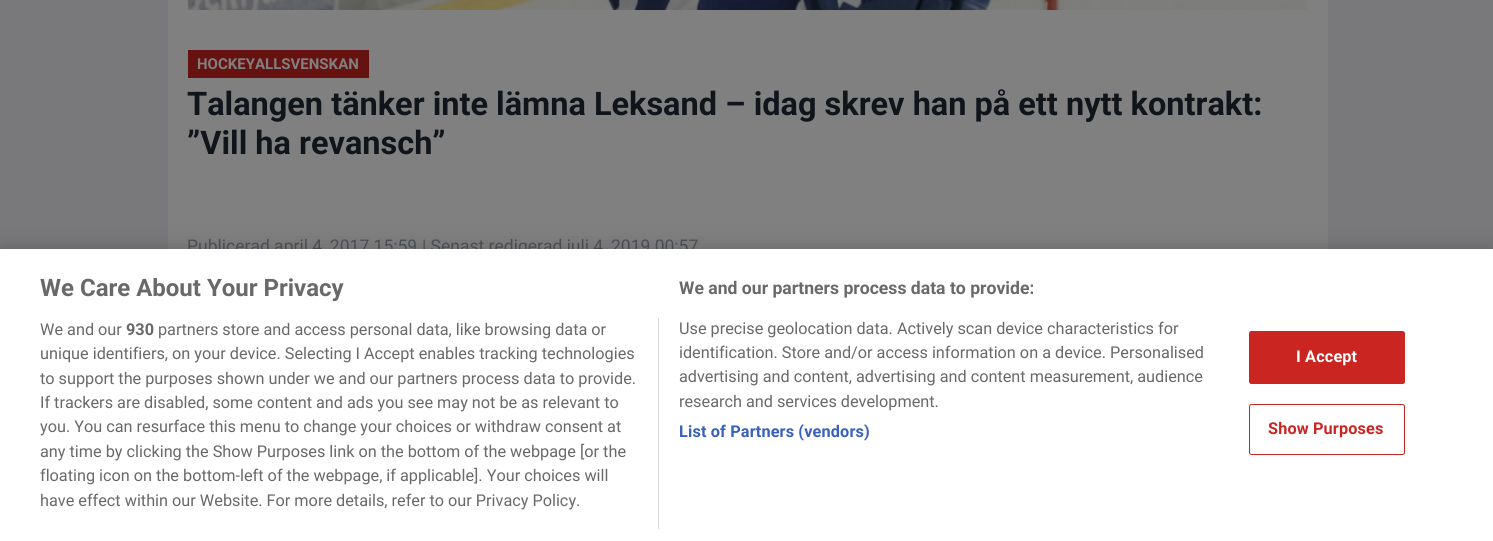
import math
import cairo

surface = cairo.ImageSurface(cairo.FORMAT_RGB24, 1493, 541)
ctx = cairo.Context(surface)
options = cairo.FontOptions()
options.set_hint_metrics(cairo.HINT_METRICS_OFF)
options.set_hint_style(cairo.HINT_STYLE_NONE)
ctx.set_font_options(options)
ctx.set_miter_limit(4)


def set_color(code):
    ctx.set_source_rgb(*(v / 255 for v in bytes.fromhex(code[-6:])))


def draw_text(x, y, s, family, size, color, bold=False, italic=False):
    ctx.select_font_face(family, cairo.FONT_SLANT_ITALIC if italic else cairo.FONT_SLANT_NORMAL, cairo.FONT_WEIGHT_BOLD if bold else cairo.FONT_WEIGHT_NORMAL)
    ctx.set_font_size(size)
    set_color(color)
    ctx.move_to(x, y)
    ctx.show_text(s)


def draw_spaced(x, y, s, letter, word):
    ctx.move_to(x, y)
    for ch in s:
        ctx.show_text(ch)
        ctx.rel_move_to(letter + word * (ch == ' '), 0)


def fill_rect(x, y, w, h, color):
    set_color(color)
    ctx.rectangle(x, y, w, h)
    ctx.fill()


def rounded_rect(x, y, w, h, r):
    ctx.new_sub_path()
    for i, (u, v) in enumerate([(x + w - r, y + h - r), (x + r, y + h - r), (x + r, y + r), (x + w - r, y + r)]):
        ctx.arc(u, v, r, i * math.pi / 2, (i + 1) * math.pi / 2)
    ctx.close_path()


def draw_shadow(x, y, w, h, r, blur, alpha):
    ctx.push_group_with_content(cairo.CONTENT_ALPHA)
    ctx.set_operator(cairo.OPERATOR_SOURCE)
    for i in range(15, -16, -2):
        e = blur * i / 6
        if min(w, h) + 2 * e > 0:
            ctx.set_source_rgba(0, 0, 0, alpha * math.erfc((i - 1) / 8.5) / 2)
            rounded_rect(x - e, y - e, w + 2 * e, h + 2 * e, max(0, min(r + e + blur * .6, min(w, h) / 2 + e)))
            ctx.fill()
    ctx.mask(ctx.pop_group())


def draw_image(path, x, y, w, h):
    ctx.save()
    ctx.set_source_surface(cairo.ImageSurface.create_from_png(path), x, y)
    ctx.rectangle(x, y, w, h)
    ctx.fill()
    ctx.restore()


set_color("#79797b")
ctx.paint()
fill_rect(168, 0, 1160, 249, "#808080")
draw_image("assets/img1.png", 187, 0, 1120, 10)
fill_rect(188, 50, 181, 28, "#661211")
draw_text(197, 69, "HOCKEYALLSVENSKAN", "Roboto", 15, "#808080", bold=True)
draw_text(187, 115, "Talangen tänker inte lämna Leksand – idag skrev han på ett nytt kontrakt:", "Roboto", 32.5, "#10151c", bold=True)
draw_text(187, 154, "”Vill ha revansch”", "Roboto", 32.5, "#10151c", bold=True)
draw_text(187, 252, "Publicerad april 4, 2017 15:59", "Roboto", 17.5, "#4e5258")
draw_text(422, 252, "| Senast redigerad juli 4, 2019 00:57", "Roboto", 17.5, "#4e5258")
set_color("#000000")
draw_shadow(0, 249, 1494, 292, 0, 11, 0.2)
fill_rect(0, 249, 1493, 292, "#ffffff")
draw_text(40, 296, "We Care About Your Privacy", "Roboto", 24, "#696969", bold=True)
draw_text(679, 294, "We and our partners process data to provide:", "Roboto", 17.6, "#696969", bold=True)
draw_text(679, 334, "Use precise geolocation data. Actively scan device characteristics for", "Roboto", 16.25, "#696969")
draw_text(679, 358, "identification. Store and/or access information on a device. Personalised", "Roboto", 16.25, "#696969")
draw_text(679, 382, "advertising and content, advertising and content measurement, audience", "Roboto", 16.25, "#696969")
draw_text(679, 407, "research and services development.", "Roboto", 16.25, "#696969")
ctx.select_font_face("Roboto", cairo.FONT_SLANT_NORMAL, cairo.FONT_WEIGHT_BOLD)
set_color("#3860be")
draw_spaced(679, 437, "List of Partners (vendors)", 0.15, 0)
fill_rect(658, 318, 1, 211, "#d8d8d8")
draw_text(40, 335, "We and our", "Roboto", 16.25, "#696969")
draw_text(126, 335, "930", "Roboto", 16.25, "#696969", bold=True)
draw_text(158, 335, "partners store and access personal data, like browsing data or", "Roboto", 16.25, "#696969")
draw_text(40, 359, "unique identifiers, on your device. Selecting I Accept enables tracking technologies", "Roboto", 16.25, "#696969")
draw_text(40, 384, "to support the purposes shown under we and our partners process data to provide.", "Roboto", 16.25, "#696969")
draw_text(40, 408, "If trackers are disabled, some content and ads you see may not be as relevant to", "Roboto", 16.25, "#696969")
draw_text(40, 432, "you. You can resurface this menu to change your choices or withdraw consent at", "Roboto", 16.25, "#696969")
draw_text(40, 457, "any time by clicking the Show Purposes link on the bottom of the webpage", "Roboto", 16.25, "#696969")
draw_text(580, 457, "[or the", "Roboto", 16.25, "#696969")
draw_text(40, 481, "floating icon on the bottom-left of the webpage, if applicable]. Your choices will", "Roboto", 16.25, "#696969")
draw_text(40, 506, "have effect within our Website. For more details, refer to our Privacy Policy.", "Roboto", 16.25, "#696969")
set_color("#cb2522")
rounded_rect(1249.5, 331.5, 155, 52, 2)
ctx.fill_preserve()
ctx.set_line_width(1)
ctx.stroke()
ctx.select_font_face("Roboto", cairo.FONT_SLANT_NORMAL, cairo.FONT_WEIGHT_BOLD)
set_color("#ffffff")
draw_spaced(1296, 362, "I Accept", 0.15, 0)
rounded_rect(1249.5, 404.5, 155, 50, 2)
set_color("#cb2522")
ctx.stroke()
draw_spaced(1268, 434, "Show Purposes", 0.15, 0)
surface.write_to_png("output.png")
